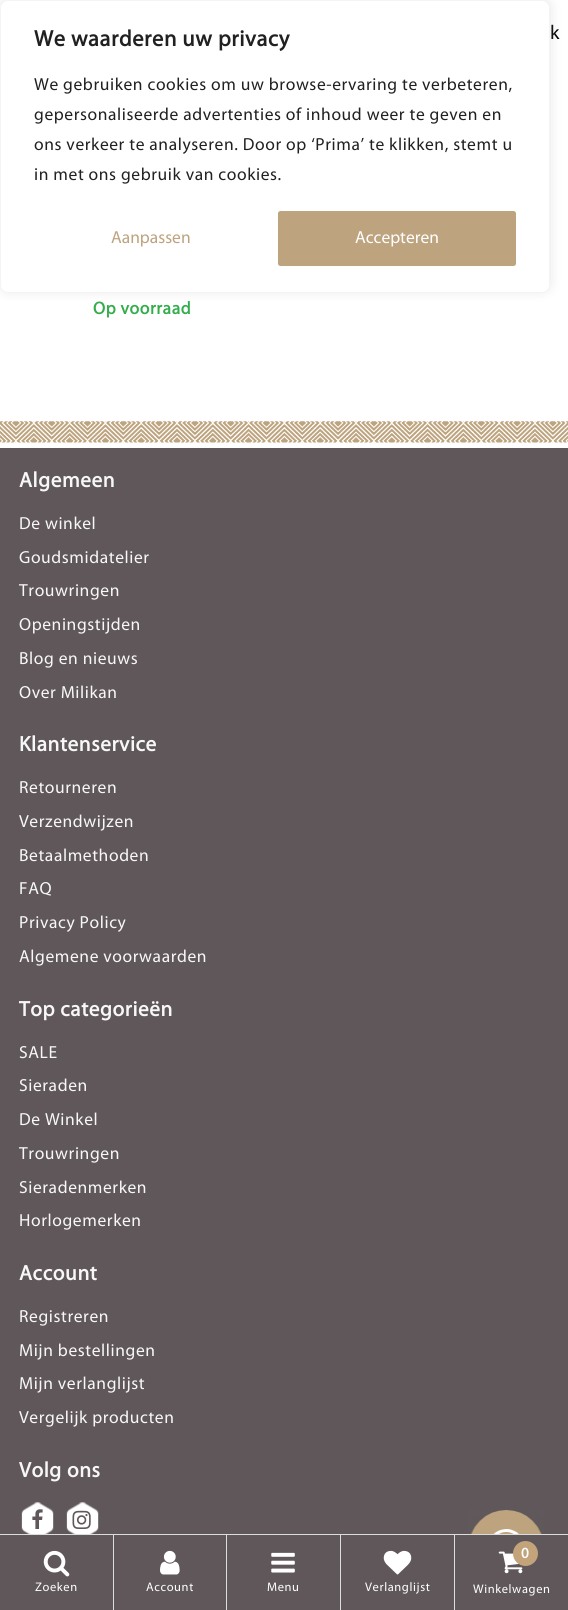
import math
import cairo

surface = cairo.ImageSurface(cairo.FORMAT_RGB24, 568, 1610)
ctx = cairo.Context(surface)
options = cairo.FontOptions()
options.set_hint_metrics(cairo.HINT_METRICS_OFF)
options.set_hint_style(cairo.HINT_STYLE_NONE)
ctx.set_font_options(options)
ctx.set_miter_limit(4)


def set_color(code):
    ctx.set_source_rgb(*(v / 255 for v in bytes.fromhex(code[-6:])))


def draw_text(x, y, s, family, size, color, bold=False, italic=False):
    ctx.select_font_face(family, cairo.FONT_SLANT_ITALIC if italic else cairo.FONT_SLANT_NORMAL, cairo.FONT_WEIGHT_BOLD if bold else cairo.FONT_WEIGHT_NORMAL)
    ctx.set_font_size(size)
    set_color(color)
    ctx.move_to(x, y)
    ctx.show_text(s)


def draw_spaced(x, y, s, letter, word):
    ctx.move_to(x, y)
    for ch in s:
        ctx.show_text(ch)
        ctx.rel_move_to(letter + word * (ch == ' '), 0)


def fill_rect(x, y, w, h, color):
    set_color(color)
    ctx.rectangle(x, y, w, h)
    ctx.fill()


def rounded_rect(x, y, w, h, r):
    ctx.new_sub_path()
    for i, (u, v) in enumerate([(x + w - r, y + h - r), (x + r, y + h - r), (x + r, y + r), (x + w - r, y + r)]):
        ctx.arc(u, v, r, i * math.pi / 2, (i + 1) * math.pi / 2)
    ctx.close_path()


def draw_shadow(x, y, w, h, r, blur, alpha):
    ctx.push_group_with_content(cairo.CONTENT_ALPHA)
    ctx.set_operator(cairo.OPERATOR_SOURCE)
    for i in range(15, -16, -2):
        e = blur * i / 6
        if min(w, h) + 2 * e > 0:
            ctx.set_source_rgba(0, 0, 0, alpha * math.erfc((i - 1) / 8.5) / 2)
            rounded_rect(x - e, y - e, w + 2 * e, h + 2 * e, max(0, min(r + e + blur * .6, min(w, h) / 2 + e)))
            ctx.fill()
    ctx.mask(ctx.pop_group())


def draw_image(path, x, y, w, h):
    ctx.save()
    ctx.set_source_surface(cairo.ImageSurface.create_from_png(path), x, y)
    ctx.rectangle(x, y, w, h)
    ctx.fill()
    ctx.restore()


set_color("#ffffff")
ctx.paint()
ctx.select_font_face("Myriad")
ctx.set_font_size(20)
set_color("#000000")
draw_spaced(550, 39, "k", 0.6, 0)
ctx.select_font_face("Myriad", cairo.FONT_SLANT_NORMAL, cairo.FONT_WEIGHT_BOLD)
ctx.set_font_size(17.5)
set_color("#33ad4b")
draw_spaced(93, 314, "Op voorraad", 0.6, 0)
draw_image("assets/img1.png", 0, 421, 568, 22)
fill_rect(0, 448, 568, 1162, "#60575a")
ctx.set_font_size(21.25)
set_color("#f7f7f7")
draw_spaced(19, 487, "Algemeen", 0.6, 0)
ctx.select_font_face("Myriad")
ctx.set_font_size(17.5)
draw_spaced(19, 529, "De winkel", 0.6, 0)
draw_spaced(19, 563, "Goudsmidatelier", 0.6, 0)
draw_spaced(19, 596, "Trouwringen", 0.6, 0)
draw_spaced(19, 630, "Openingstijden", 0.6, 0)
draw_spaced(19, 664, "Blog en nieuws", 0.6, 0)
draw_spaced(19, 698, "Over Milikan", 0.6, 0)
ctx.select_font_face("Myriad", cairo.FONT_SLANT_NORMAL, cairo.FONT_WEIGHT_BOLD)
ctx.set_font_size(21.25)
draw_spaced(19, 751, "Klantenservice", 0.6, 0)
ctx.select_font_face("Myriad")
ctx.set_font_size(17.5)
draw_spaced(19, 793, "Retourneren", 0.6, 0)
draw_spaced(19, 827, "Verzendwijzen", 0.6, 0)
draw_spaced(19, 861, "Betaalmethoden", 0.6, 0)
draw_spaced(19, 894, "FAQ", 0.6, 0)
draw_spaced(19, 928, "Privacy Policy", 0.6, 0)
draw_spaced(19, 962, "Algemene voorwaarden", 0.6, 0)
ctx.select_font_face("Myriad", cairo.FONT_SLANT_NORMAL, cairo.FONT_WEIGHT_BOLD)
ctx.set_font_size(21.25)
draw_spaced(19, 1016, "Top categorieën", 0.6, 0)
ctx.select_font_face("Myriad")
ctx.set_font_size(17.5)
draw_spaced(19, 1058, "SALE", 0.6, 0)
draw_spaced(19, 1091, "Sieraden", 0.6, 0)
draw_spaced(19, 1125, "De Winkel", 0.6, 0)
draw_spaced(19, 1159, "Trouwringen", 0.6, 0)
draw_spaced(19, 1193, "Sieradenmerken", 0.6, 0)
draw_spaced(19, 1226, "Horlogemerken", 0.6, 0)
ctx.select_font_face("Myriad", cairo.FONT_SLANT_NORMAL, cairo.FONT_WEIGHT_BOLD)
ctx.set_font_size(21.25)
draw_spaced(19, 1280, "Account", 0.6, 0)
ctx.select_font_face("Myriad")
ctx.set_font_size(17.5)
draw_spaced(19, 1322, "Registreren", 0.6, 0)
draw_spaced(19, 1356, "Mijn bestellingen", 0.6, 0)
draw_spaced(19, 1389, "Mijn verlanglijst", 0.6, 0)
draw_spaced(19, 1423, "Vergelijk producten", 0.6, 0)
ctx.select_font_face("Myriad", cairo.FONT_SLANT_NORMAL, cairo.FONT_WEIGHT_BOLD)
ctx.set_font_size(21.25)
draw_spaced(19, 1477, "Volg ons", 0.6, 0)
draw_image("assets/img2.png", 21, 1502, 33, 32)
draw_image("assets/img3.png", 32, 1509, 11, 20)
draw_image("assets/img2.png", 66, 1502, 33, 32)
draw_image("assets/img4.png", 72, 1510, 19, 19)
set_color("#acabab")
draw_shadow(0, -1, 550, 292, 8, 6, 0.3)
set_color("#ffffff")
rounded_rect(0.5, 0.5, 549, 292, 7.5)
ctx.fill_preserve()
set_color("#f4f4f4")
ctx.set_line_width(1)
ctx.stroke()
ctx.set_font_size(22.5)
set_color("#212121")
draw_spaced(34, 46, "We waarderen uw privacy", 0.6, 0)
ctx.select_font_face("Myriad")
ctx.set_font_size(17.5)
draw_spaced(34, 90, "We gebruiken cookies om uw browse-ervaring te verbeteren,", 0.6, 0)
draw_spaced(34, 120, "gepersonaliseerde advertenties of inhoud weer te geven en", 0.6, 0)
draw_spaced(34, 150, "ons verkeer te analyseren. Door op ‘Prima’ te klikken, stemt u", 0.6, 0)
draw_spaced(34, 180, "in met ons gebruik van cookies.", 0.6, 0)
draw_text(111, 243, "Aanpassen", "Myriad", 17.5, "#bea37f")
rounded_rect(279.5, 212.5, 235, 52, 1)
ctx.fill_preserve()
ctx.set_line_width(3)
ctx.stroke()
draw_text(355, 243, "Accepteren", "Myriad", 17.5, "#ffffff")
draw_image("assets/img5.png", 468, 1510, 76, 24)
fill_rect(0, 1534, 568, 1, "#dddddd")
fill_rect(113, 1534, 1, 76, "#dddddd")
draw_image("assets/img6.png", 43, 1550, 27, 27)
ctx.set_font_size(12.5)
set_color("#ffffff")
draw_spaced(35, 1591, "Zoeken", 0.6, 0)
fill_rect(226, 1534, 1, 76, "#dddddd")
draw_image("assets/img7.png", 160, 1550, 20, 25)
set_color("#ffffff")
draw_spaced(146, 1591, "Account", 0.6, 0)
fill_rect(340, 1534, 1, 76, "#dddddd")
draw_image("assets/img8.png", 271, 1552, 24, 21)
set_color("#ffffff")
draw_spaced(267, 1591, "Menu", 0.6, 0)
fill_rect(454, 1534, 1, 76, "#dddddd")
draw_image("assets/img9.png", 383, 1550, 29, 25)
set_color("#ffffff")
draw_spaced(365, 1591, "Verlanglijst", 0.6, 0)
draw_image("assets/img10.png", 498, 1551, 25, 23)
set_color("#c3a37a")
ctx.arc(525.5, 1553.5, 12.5, 0, 2 * math.pi)
ctx.fill()
ctx.select_font_face("Myriad", cairo.FONT_SLANT_NORMAL, cairo.FONT_WEIGHT_BOLD)
ctx.set_font_size(15)
set_color("#ffffff")
draw_spaced(521, 1558, "0", 0.6, 0)
ctx.select_font_face("Myriad")
ctx.set_font_size(12.5)
draw_spaced(473, 1593, "Winkelwagen", 0.6, 0)
surface.write_to_png("output.png")
